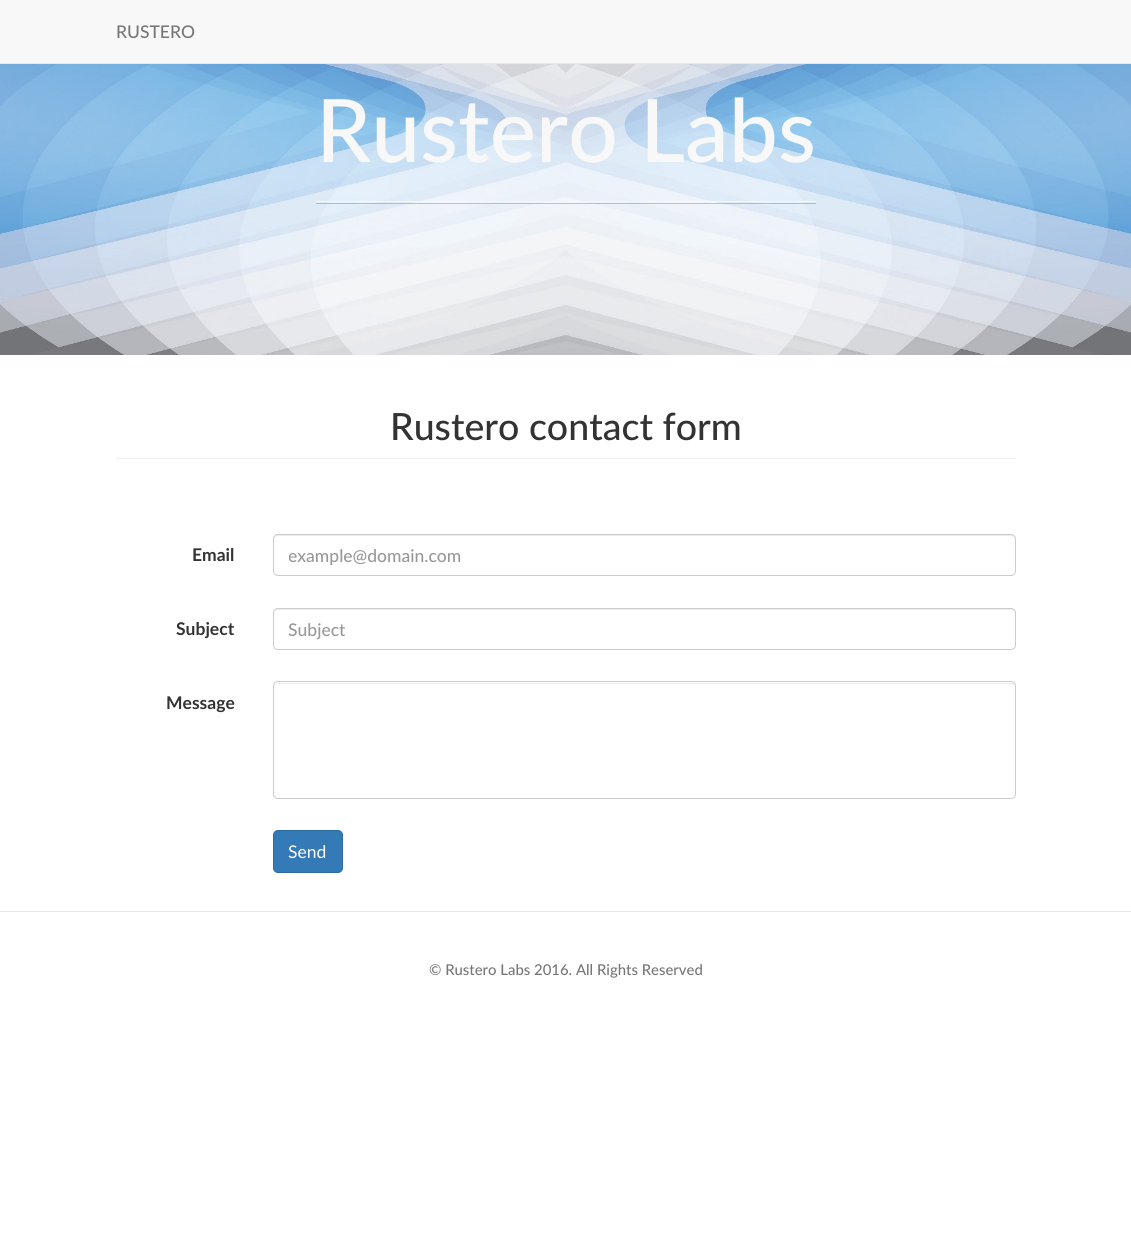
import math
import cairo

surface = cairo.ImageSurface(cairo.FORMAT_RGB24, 1131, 1242)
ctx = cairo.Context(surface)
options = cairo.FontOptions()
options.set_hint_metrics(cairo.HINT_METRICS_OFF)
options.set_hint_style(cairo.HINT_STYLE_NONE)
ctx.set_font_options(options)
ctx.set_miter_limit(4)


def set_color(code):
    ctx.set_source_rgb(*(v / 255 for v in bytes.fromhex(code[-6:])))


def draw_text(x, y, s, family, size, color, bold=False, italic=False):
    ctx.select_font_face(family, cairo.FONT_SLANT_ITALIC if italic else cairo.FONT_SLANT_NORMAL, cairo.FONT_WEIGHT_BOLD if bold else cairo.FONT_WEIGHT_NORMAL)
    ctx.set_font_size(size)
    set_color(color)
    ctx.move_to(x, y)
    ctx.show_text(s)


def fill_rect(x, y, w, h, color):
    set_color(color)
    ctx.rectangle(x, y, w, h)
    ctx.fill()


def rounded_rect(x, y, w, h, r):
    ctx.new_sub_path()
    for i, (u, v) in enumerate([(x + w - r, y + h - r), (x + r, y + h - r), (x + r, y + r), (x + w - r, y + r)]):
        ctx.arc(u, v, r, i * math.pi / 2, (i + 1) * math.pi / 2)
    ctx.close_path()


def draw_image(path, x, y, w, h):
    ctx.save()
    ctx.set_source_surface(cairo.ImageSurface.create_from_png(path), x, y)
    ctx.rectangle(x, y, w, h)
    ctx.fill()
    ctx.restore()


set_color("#ffffff")
ctx.paint()
fill_rect(0, 0, 1131, 63, "#f8f8f8")
fill_rect(0, 63, 1131, 1, "#e7e7e7")
draw_text(116, 38, "RUSTERO", "Lato Medium", 17.5, "#777777")
draw_image("assets/img1.png", 0, 64, 1131, 291)
draw_text(316, 162, "Rustero Labs", "Lato Medium", 87.5, "#f8f8f8")
fill_rect(316, 201, 500, 1, "#f8f8f8")
ctx.set_source_rgba(0, 0, 0, 0.2)
ctx.rectangle(316, 203, 500, 1)
ctx.fill()
fill_rect(116, 458, 900, 1, "#eeeeee")
draw_text(390, 440, "Rustero contact form", "Lato Medium", 37.5, "#333333")
draw_text(192, 561, "Email", "Lato", 17.5, "#333333", bold=True)
set_color("#ececec")
ctx.new_path()
ctx.move_to(278, 536)
ctx.line_to(1011, 536)
ctx.curve_to(1013, 536, 1015, 538, 1015, 540)
ctx.curve_to(1015, 537, 1014, 535, 1011, 535)
ctx.line_to(278, 535)
ctx.line_to(275, 536)
ctx.line_to(274, 537)
ctx.line_to(274, 540)
ctx.curve_to(274, 538, 275, 536, 278, 536)
ctx.close_path()
ctx.fill()
rounded_rect(273.5, 534.5, 742, 41, 4.5)
set_color("#cccccc")
ctx.set_line_width(1)
ctx.stroke()
ctx.save()
ctx.rectangle(289, 545, 711, 21)
ctx.clip()
draw_text(288, 562, "example@domain.com", "Lato Medium", 17.5, "#999999")
ctx.restore()
draw_text(176, 635, "Subject", "Lato", 17.5, "#333333", bold=True)
set_color("#ececec")
ctx.new_path()
ctx.move_to(278, 610)
ctx.line_to(1011, 610)
ctx.curve_to(1013, 610, 1015, 612, 1015, 614)
ctx.curve_to(1015, 611, 1014, 609, 1011, 609)
ctx.line_to(278, 609)
ctx.line_to(275, 610)
ctx.line_to(274, 611)
ctx.line_to(274, 614)
ctx.curve_to(274, 612, 275, 610, 278, 610)
ctx.close_path()
ctx.fill()
rounded_rect(273.5, 608.5, 742, 41, 4.5)
set_color("#cccccc")
ctx.stroke()
draw_text(288, 636, "Subject", "Lato Medium", 17.5, "#999999")
draw_text(166, 709, "Message", "Lato", 17.5, "#333333", bold=True)
set_color("#ececec")
ctx.new_path()
ctx.move_to(278, 684)
ctx.line_to(1011, 684)
ctx.curve_to(1013, 684, 1015, 685, 1015, 688)
ctx.curve_to(1015, 685, 1014, 683, 1011, 683)
ctx.line_to(278, 683)
ctx.line_to(275, 684)
ctx.line_to(274, 685)
ctx.line_to(274, 688)
ctx.curve_to(274, 685, 275, 684, 278, 684)
ctx.close_path()
ctx.fill()
rounded_rect(273.5, 681.5, 742, 117, 4.5)
set_color("#cccccc")
ctx.stroke()
set_color("#337ab7")
rounded_rect(273.5, 830.5, 69, 42, 4.5)
ctx.fill_preserve()
set_color("#2e6da4")
ctx.stroke()
draw_text(288, 858, "Send", "Lato", 17.5, "#ffffff")
fill_rect(0, 911, 1131, 1, "#e7e7e7")
draw_text(429, 975, "© Rustero Labs 2016. All Rights Reserved", "Lato Medium", 14.9, "#777777")
surface.write_to_png("output.png")
